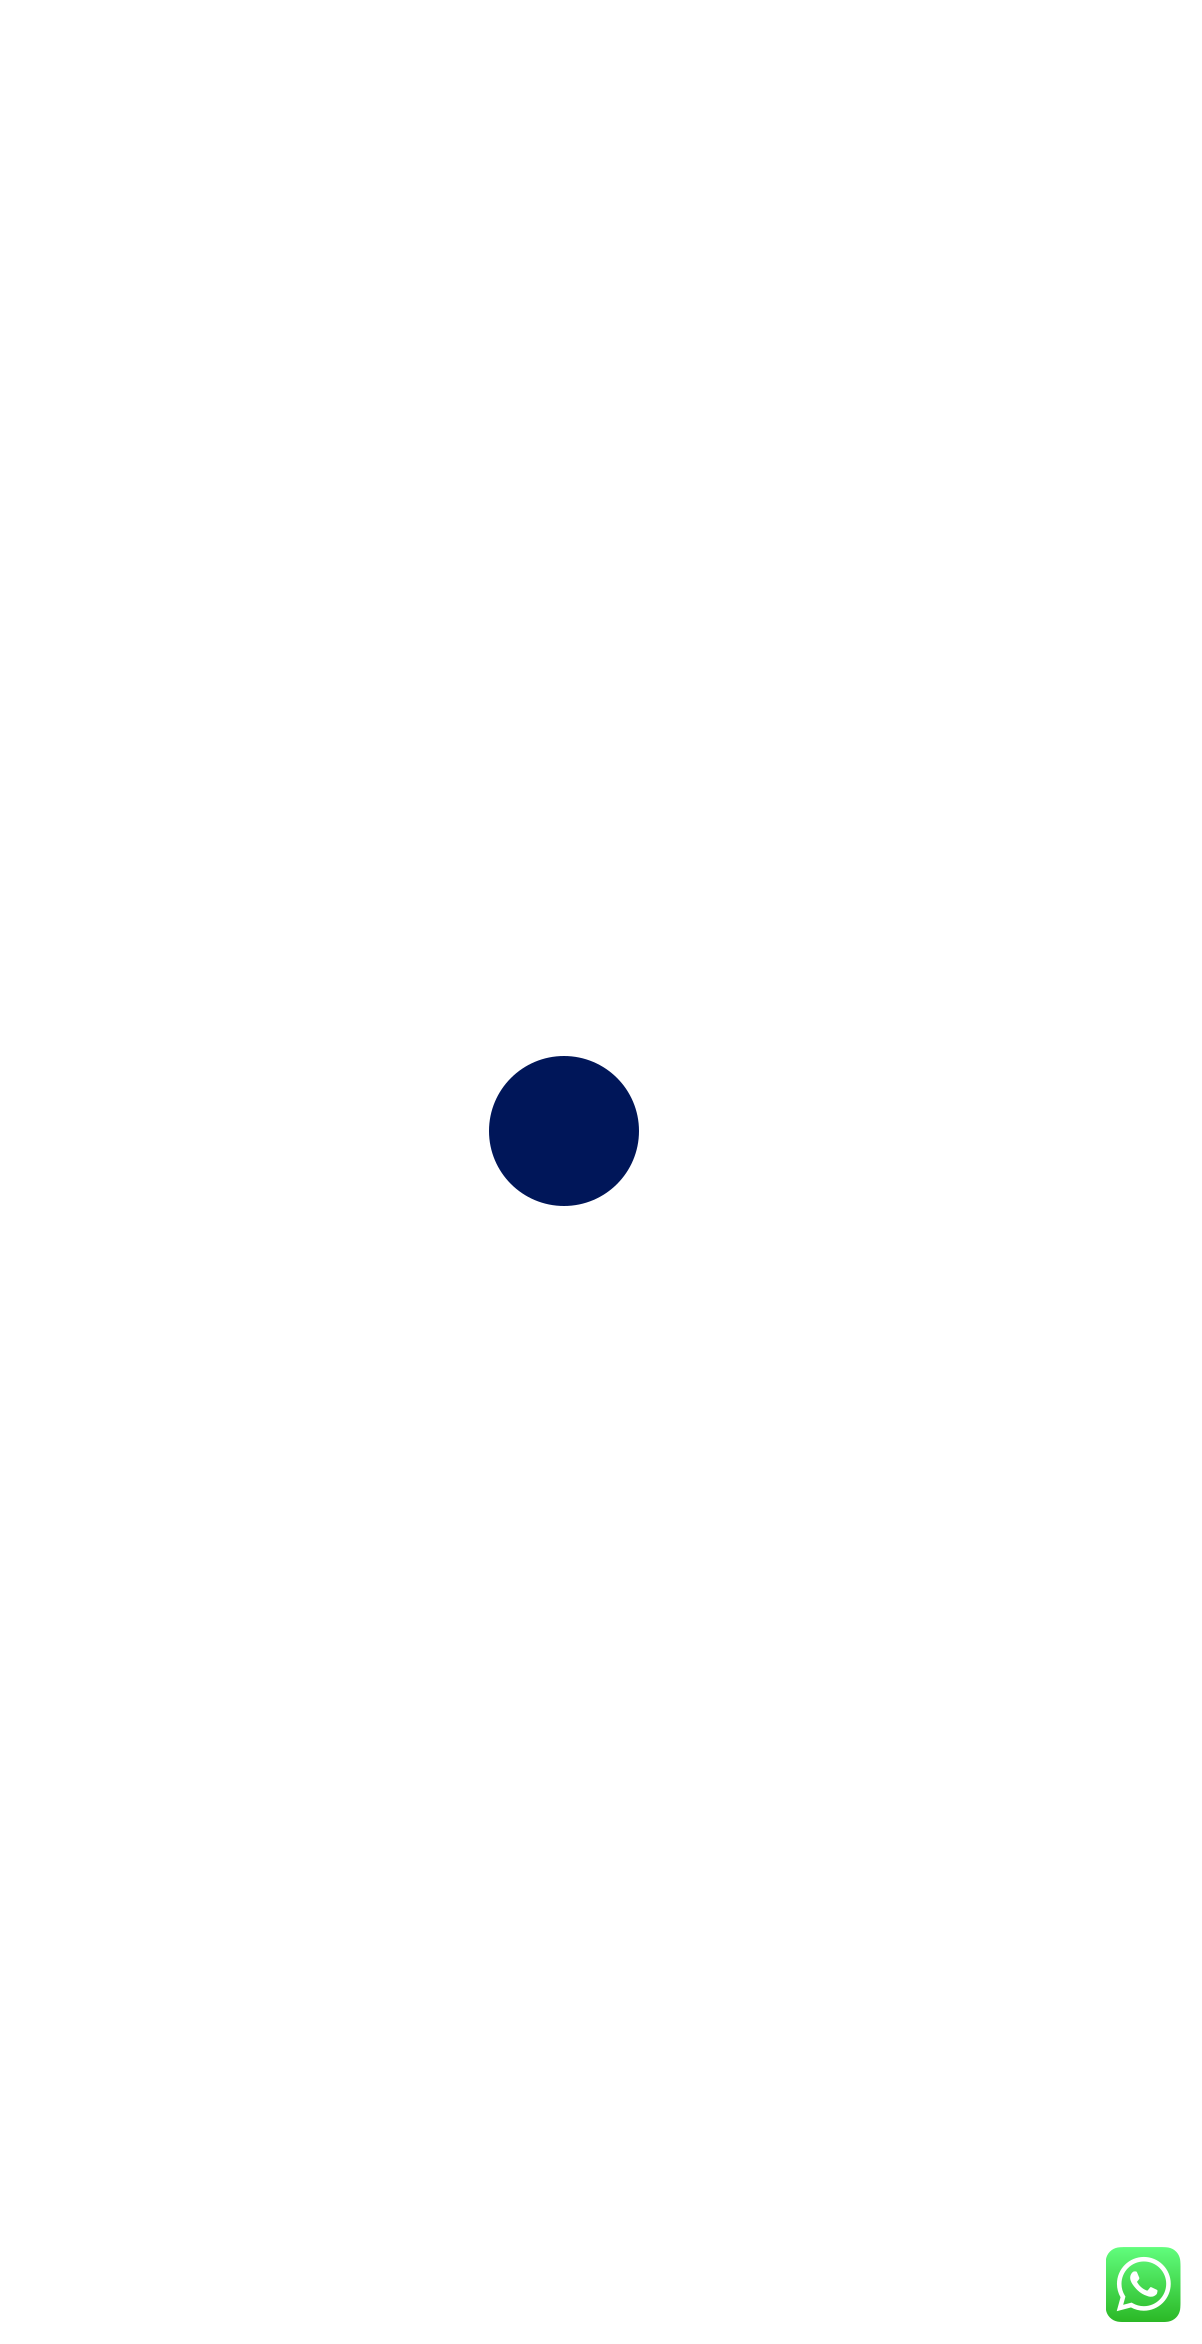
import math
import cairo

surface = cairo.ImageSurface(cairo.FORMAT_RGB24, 1202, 2344)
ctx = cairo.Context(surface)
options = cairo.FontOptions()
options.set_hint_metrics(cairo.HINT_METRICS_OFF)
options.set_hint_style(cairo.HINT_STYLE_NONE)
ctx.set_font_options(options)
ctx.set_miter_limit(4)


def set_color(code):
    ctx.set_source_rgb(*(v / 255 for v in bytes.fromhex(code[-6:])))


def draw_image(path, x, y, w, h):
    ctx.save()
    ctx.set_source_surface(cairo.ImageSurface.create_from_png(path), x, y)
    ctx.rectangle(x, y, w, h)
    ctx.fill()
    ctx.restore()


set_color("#ffffff")
ctx.paint()
set_color("#001659")
ctx.arc(564, 1131, 75, 0, 2 * math.pi)
ctx.fill()
draw_image("assets/img1.png", 1106, 2247, 75, 75)
surface.write_to_png("output.png")
